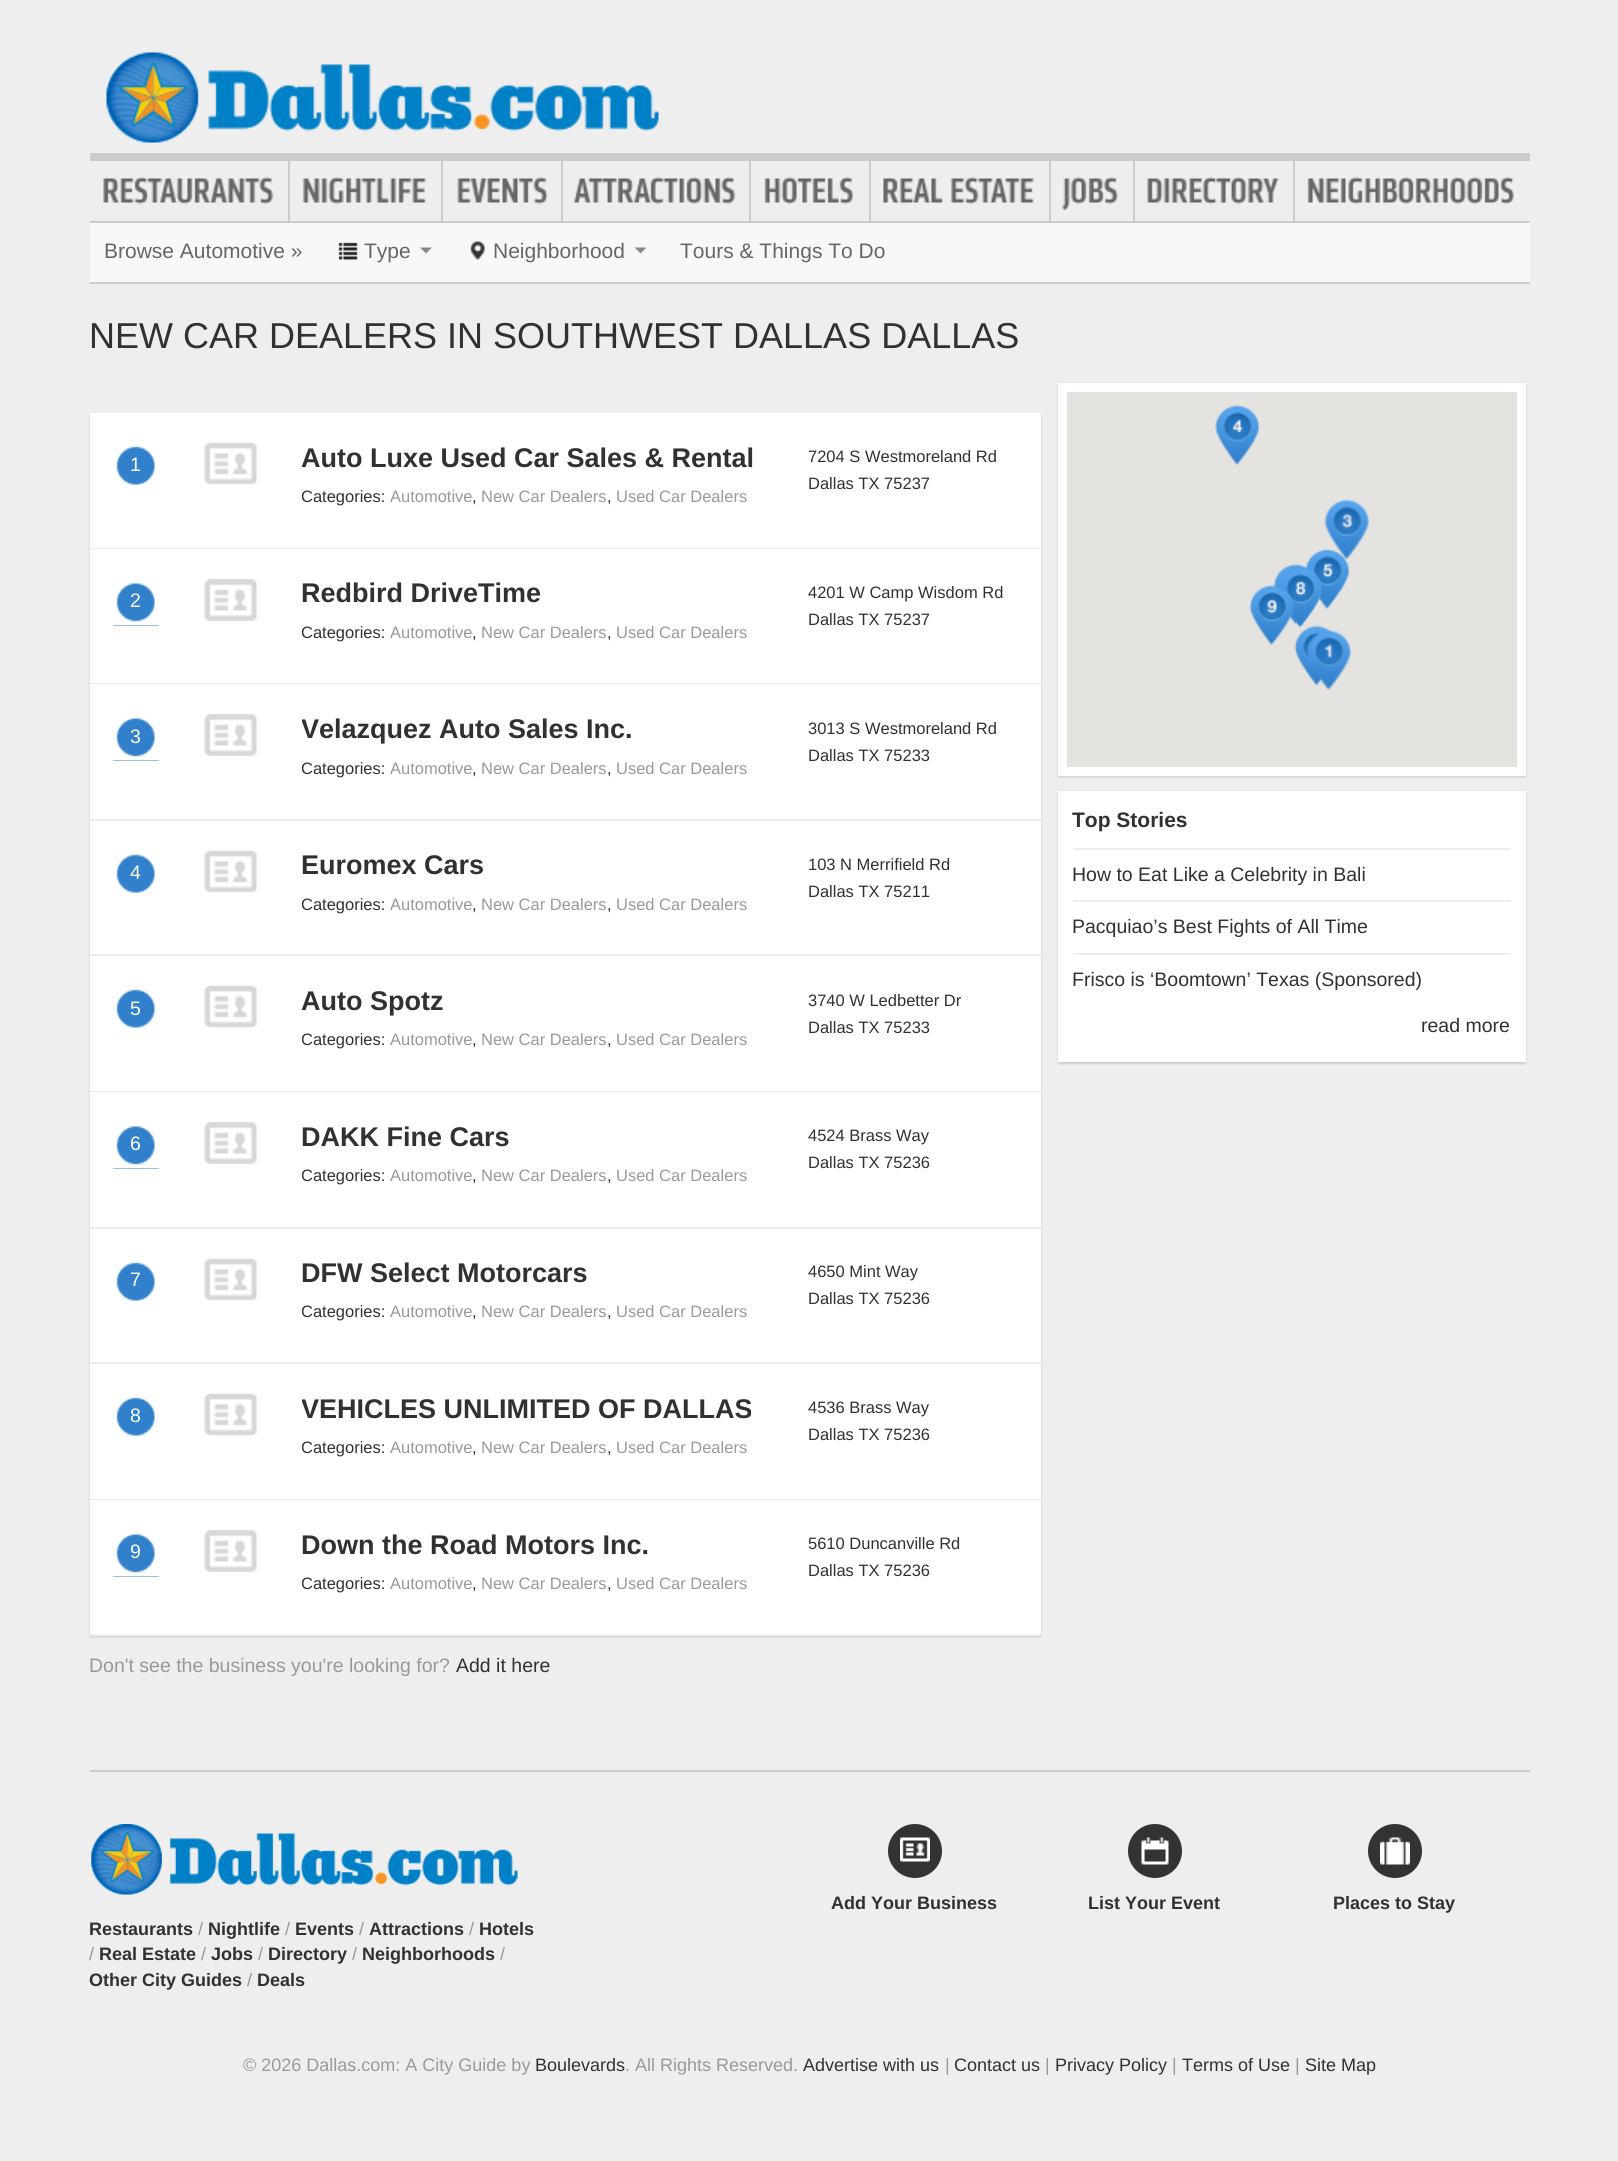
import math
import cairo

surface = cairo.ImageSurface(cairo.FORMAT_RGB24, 1618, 2161)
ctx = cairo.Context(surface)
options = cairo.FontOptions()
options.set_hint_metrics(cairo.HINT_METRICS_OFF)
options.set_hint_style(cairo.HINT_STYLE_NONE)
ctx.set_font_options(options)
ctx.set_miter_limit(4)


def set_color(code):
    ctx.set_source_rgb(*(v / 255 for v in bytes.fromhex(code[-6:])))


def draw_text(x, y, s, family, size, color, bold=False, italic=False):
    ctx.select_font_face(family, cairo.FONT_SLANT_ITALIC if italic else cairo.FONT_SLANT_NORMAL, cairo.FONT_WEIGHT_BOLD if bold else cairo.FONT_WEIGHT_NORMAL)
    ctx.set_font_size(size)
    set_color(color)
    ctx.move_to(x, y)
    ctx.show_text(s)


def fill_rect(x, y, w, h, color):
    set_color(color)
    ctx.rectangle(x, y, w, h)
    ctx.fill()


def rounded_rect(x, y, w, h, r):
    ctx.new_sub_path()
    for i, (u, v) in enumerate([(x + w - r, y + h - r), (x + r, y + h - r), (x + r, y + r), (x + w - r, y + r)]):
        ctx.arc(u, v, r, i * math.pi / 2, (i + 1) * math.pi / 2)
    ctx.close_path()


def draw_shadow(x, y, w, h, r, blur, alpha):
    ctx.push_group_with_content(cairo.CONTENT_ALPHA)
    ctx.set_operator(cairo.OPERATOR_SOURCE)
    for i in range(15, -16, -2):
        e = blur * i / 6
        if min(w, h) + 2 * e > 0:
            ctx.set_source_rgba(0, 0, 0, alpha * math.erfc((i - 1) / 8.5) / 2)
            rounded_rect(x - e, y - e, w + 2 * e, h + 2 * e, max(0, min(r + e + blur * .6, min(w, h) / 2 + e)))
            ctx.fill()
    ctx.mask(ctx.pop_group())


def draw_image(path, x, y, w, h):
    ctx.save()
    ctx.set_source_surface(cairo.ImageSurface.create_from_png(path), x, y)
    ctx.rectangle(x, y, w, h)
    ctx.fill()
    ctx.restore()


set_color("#eeeeee")
ctx.paint()
draw_image("assets/img1.png", 106, 52, 553, 91)
fill_rect(90, 153, 1440, 8, "#cccccc")
fill_rect(90, 221, 1440, 2, "#cccccc")
fill_rect(288, 161, 2, 60, "#cccccc")
draw_image("assets/img2.png", 103, 176, 171, 29)
fill_rect(441, 161, 2, 60, "#cccccc")
draw_image("assets/img3.png", 302, 176, 125, 29)
fill_rect(561, 161, 2, 60, "#cccccc")
draw_image("assets/img4.png", 457, 176, 91, 29)
fill_rect(749, 161, 2, 60, "#cccccc")
draw_image("assets/img5.png", 573, 176, 163, 29)
fill_rect(869, 161, 2, 60, "#cccccc")
draw_image("assets/img6.png", 764, 176, 90, 29)
fill_rect(1049, 161, 2, 60, "#cccccc")
draw_image("assets/img7.png", 883, 176, 151, 29)
fill_rect(1133, 161, 2, 60, "#cccccc")
draw_image("assets/img8.png", 1061, 176, 57, 34)
fill_rect(1293, 161, 2, 60, "#cccccc")
draw_image("assets/img9.png", 1147, 176, 132, 29)
draw_image("assets/img10.png", 1307, 176, 207, 29)
fill_rect(90, 223, 1440, 59, "#f8f8f8")
fill_rect(90, 282, 1440, 2, "#cbcbcb")
draw_text(104, 258, "Browse Automotive »", "Liberation Sans", 21, "#666666")
draw_image("assets/img11.png", 338, 242, 20, 18)
draw_text(364, 258, "Type", "Liberation Sans", 21, "#666666")
set_color("#888888")
ctx.new_path()
ctx.move_to(420, 247.5)
ctx.line_to(432, 247.5)
ctx.line_to(426, 253.5)
ctx.close_path()
ctx.fill()
draw_image("assets/img12.png", 470, 241, 15, 19)
draw_text(493, 258, "Neighborhood", "Liberation Sans", 21, "#666666")
set_color("#888888")
ctx.new_path()
ctx.move_to(634.5, 247.5)
ctx.line_to(646.5, 247.5)
ctx.line_to(640.5, 253.5)
ctx.close_path()
ctx.fill()
draw_text(680, 258, "Tours & Things To Do", "Liberation Sans", 21, "#666666")
draw_text(89, 348, "NEW CAR DEALERS IN SOUTHWEST DALLAS DALLAS", "Liberation Sans", 36, "#313131")
set_color("#cbcbcb")
draw_shadow(90, 414, 951, 137, 0, 1, 1)
fill_rect(90, 413, 951, 135, "#ffffff")
fill_rect(90, 548, 951, 1, "#eeeeee")
fill_rect(116, 446, 39, 39, "#3080cb")
draw_image("assets/img13.png", 113, 443, 46, 46)
draw_text(130, 471, "1", "Liberation Sans", 19.5, "#ffffff")
draw_image("assets/img14.png", 204, 442, 53, 43)
draw_text(301, 467, "Auto Luxe Used Car Sales & Rental", "Liberation Sans", 27, "#313131", bold=True)
ctx.save()
ctx.rectangle(302, 483, 507, 27)
ctx.clip()
draw_text(301, 502, "Categories:", "Liberation Sans", 16.5, "#313131")
ctx.restore()
draw_text(390, 502, "Automotive", "Liberation Sans", 16.5, "#999999")
draw_text(472, 502, ",", "Liberation Sans", 16.5, "#313131")
draw_text(481, 502, "New Car Dealers", "Liberation Sans", 16.5, "#999999")
draw_text(607, 502, ",", "Liberation Sans", 16.5, "#313131")
draw_text(616, 502, "Used Car Dealers", "Liberation Sans", 16.5, "#999999")
draw_text(808, 462, "7204 S Westmoreland Rd", "Liberation Sans", 16.5, "#313131")
draw_text(808, 489, "Dallas TX 75237", "Liberation Sans", 16.5, "#313131")
set_color("#cbcbcb")
draw_shadow(90, 551, 951, 135, 0, 1, 1)
fill_rect(90, 549, 951, 134, "#ffffff")
fill_rect(90, 683, 951, 1, "#eeeeee")
fill_rect(113, 583, 46, 43, "#3080cb")
draw_image("assets/img15.png", 113, 579, 46, 47)
draw_text(130, 607, "2", "Liberation Sans", 19.5, "#ffffff")
draw_image("assets/img16.png", 204, 579, 53, 42)
draw_text(301, 602, "Redbird DriveTime", "Liberation Sans", 27, "#313131", bold=True)
ctx.save()
ctx.rectangle(302, 618, 507, 27)
ctx.clip()
draw_text(301, 638, "Categories:", "Liberation Sans", 16.5, "#313131")
ctx.restore()
draw_text(390, 638, "Automotive", "Liberation Sans", 16.5, "#999999")
draw_text(472, 638, ",", "Liberation Sans", 16.5, "#313131")
draw_text(481, 638, "New Car Dealers", "Liberation Sans", 16.5, "#999999")
draw_text(607, 638, ",", "Liberation Sans", 16.5, "#313131")
draw_text(616, 638, "Used Car Dealers", "Liberation Sans", 16.5, "#999999")
draw_text(808, 598, "4201 W Camp Wisdom Rd", "Liberation Sans", 16.5, "#313131")
draw_text(808, 625, "Dallas TX 75237", "Liberation Sans", 16.5, "#313131")
set_color("#cbcbcb")
draw_shadow(90, 686, 951, 136, 0, 1, 1)
fill_rect(90, 684, 951, 135, "#ffffff")
fill_rect(90, 819, 951, 2, "#eeeeee")
fill_rect(113, 718, 46, 43, "#3080cb")
draw_image("assets/img15.png", 113, 714, 46, 47)
draw_text(130, 743, "3", "Liberation Sans", 19.5, "#ffffff")
draw_image("assets/img16.png", 204, 714, 53, 42)
ctx.save()
ctx.rectangle(302, 714, 507, 33)
ctx.clip()
draw_text(301, 738, "Velazquez Auto Sales Inc.", "Liberation Sans", 27, "#313131", bold=True)
ctx.restore()
ctx.save()
ctx.rectangle(302, 755, 507, 27)
ctx.clip()
draw_text(301, 774, "Categories:", "Liberation Sans", 16.5, "#313131")
ctx.restore()
draw_text(390, 774, "Automotive", "Liberation Sans", 16.5, "#999999")
draw_text(472, 774, ",", "Liberation Sans", 16.5, "#313131")
draw_text(481, 774, "New Car Dealers", "Liberation Sans", 16.5, "#999999")
draw_text(607, 774, ",", "Liberation Sans", 16.5, "#313131")
draw_text(616, 774, "Used Car Dealers", "Liberation Sans", 16.5, "#999999")
draw_text(808, 734, "3013 S Westmoreland Rd", "Liberation Sans", 16.5, "#313131")
draw_text(808, 761, "Dallas TX 75233", "Liberation Sans", 16.5, "#313131")
set_color("#cbcbcb")
draw_shadow(90, 822, 951, 135, 0, 1, 1)
fill_rect(90, 821, 951, 133, "#ffffff")
fill_rect(90, 954, 951, 2, "#eeeeee")
fill_rect(116, 854, 39, 39, "#3080cb")
draw_image("assets/img13.png", 113, 851, 46, 46)
draw_text(130, 879, "4", "Liberation Sans", 19.5, "#ffffff")
draw_image("assets/img14.png", 204, 850, 53, 43)
draw_text(301, 874, "Euromex Cars", "Liberation Sans", 27, "#313131", bold=True)
ctx.save()
ctx.rectangle(302, 890, 507, 27)
ctx.clip()
draw_text(301, 910, "Categories:", "Liberation Sans", 16.5, "#313131")
ctx.restore()
draw_text(390, 910, "Automotive", "Liberation Sans", 16.5, "#999999")
draw_text(472, 910, ",", "Liberation Sans", 16.5, "#313131")
draw_text(481, 910, "New Car Dealers", "Liberation Sans", 16.5, "#999999")
draw_text(607, 910, ",", "Liberation Sans", 16.5, "#313131")
draw_text(616, 910, "Used Car Dealers", "Liberation Sans", 16.5, "#999999")
draw_text(808, 870, "103 N Merrifield Rd", "Liberation Sans", 16.5, "#313131")
draw_text(808, 897, "Dallas TX 75211", "Liberation Sans", 16.5, "#313131")
set_color("#cbcbcb")
draw_shadow(90, 957, 951, 137, 0, 1, 1)
fill_rect(90, 956, 951, 135, "#ffffff")
fill_rect(90, 1091, 951, 1, "#eeeeee")
fill_rect(116, 989, 39, 39, "#3080cb")
draw_image("assets/img13.png", 113, 986, 46, 46)
draw_text(130, 1015, "5", "Liberation Sans", 19.5, "#ffffff")
draw_image("assets/img14.png", 204, 985, 53, 43)
draw_text(301, 1010, "Auto Spotz", "Liberation Sans", 27, "#313131", bold=True)
ctx.save()
ctx.rectangle(302, 1026, 507, 27)
ctx.clip()
draw_text(301, 1045, "Categories:", "Liberation Sans", 16.5, "#313131")
ctx.restore()
draw_text(390, 1045, "Automotive", "Liberation Sans", 16.5, "#999999")
draw_text(472, 1045, ",", "Liberation Sans", 16.5, "#313131")
draw_text(481, 1045, "New Car Dealers", "Liberation Sans", 16.5, "#999999")
draw_text(607, 1045, ",", "Liberation Sans", 16.5, "#313131")
draw_text(616, 1045, "Used Car Dealers", "Liberation Sans", 16.5, "#999999")
draw_text(808, 1006, "3740 W Ledbetter Dr", "Liberation Sans", 16.5, "#313131")
draw_text(808, 1033, "Dallas TX 75233", "Liberation Sans", 16.5, "#313131")
set_color("#cbcbcb")
draw_shadow(90, 1094, 951, 136, 0, 1, 1)
fill_rect(90, 1092, 951, 135, "#ffffff")
fill_rect(90, 1227, 951, 2, "#eeeeee")
fill_rect(113, 1126, 46, 43, "#3080cb")
draw_image("assets/img15.png", 113, 1122, 46, 47)
draw_text(130, 1150, "6", "Liberation Sans", 19.5, "#ffffff")
draw_image("assets/img16.png", 204, 1122, 53, 42)
draw_text(301, 1146, "DAKK Fine Cars", "Liberation Sans", 27, "#313131", bold=True)
ctx.save()
ctx.rectangle(302, 1163, 507, 27)
ctx.clip()
draw_text(301, 1181, "Categories:", "Liberation Sans", 16.5, "#313131")
ctx.restore()
draw_text(390, 1181, "Automotive", "Liberation Sans", 16.5, "#999999")
draw_text(472, 1181, ",", "Liberation Sans", 16.5, "#313131")
draw_text(481, 1181, "New Car Dealers", "Liberation Sans", 16.5, "#999999")
draw_text(607, 1181, ",", "Liberation Sans", 16.5, "#313131")
draw_text(616, 1181, "Used Car Dealers", "Liberation Sans", 16.5, "#999999")
draw_text(808, 1141, "4524 Brass Way", "Liberation Sans", 16.5, "#313131")
draw_text(808, 1168, "Dallas TX 75236", "Liberation Sans", 16.5, "#313131")
set_color("#cbcbcb")
draw_shadow(90, 1230, 951, 135, 0, 1, 1)
fill_rect(90, 1229, 951, 133, "#ffffff")
fill_rect(90, 1362, 951, 2, "#eeeeee")
fill_rect(116, 1262, 39, 39, "#3080cb")
draw_image("assets/img13.png", 113, 1259, 46, 46)
draw_text(130, 1286, "7", "Liberation Sans", 19.5, "#ffffff")
draw_image("assets/img14.png", 204, 1258, 53, 43)
draw_text(301, 1282, "DFW Select Motorcars", "Liberation Sans", 27, "#313131", bold=True)
ctx.save()
ctx.rectangle(302, 1298, 507, 27)
ctx.clip()
draw_text(301, 1317, "Categories:", "Liberation Sans", 16.5, "#313131")
ctx.restore()
draw_text(390, 1317, "Automotive", "Liberation Sans", 16.5, "#999999")
draw_text(472, 1317, ",", "Liberation Sans", 16.5, "#313131")
draw_text(481, 1317, "New Car Dealers", "Liberation Sans", 16.5, "#999999")
draw_text(607, 1317, ",", "Liberation Sans", 16.5, "#313131")
draw_text(616, 1317, "Used Car Dealers", "Liberation Sans", 16.5, "#999999")
draw_text(808, 1277, "4650 Mint Way", "Liberation Sans", 16.5, "#313131")
draw_text(808, 1304, "Dallas TX 75236", "Liberation Sans", 16.5, "#313131")
set_color("#cbcbcb")
draw_shadow(90, 1365, 951, 137, 0, 1, 1)
fill_rect(90, 1364, 951, 135, "#ffffff")
fill_rect(90, 1499, 951, 1, "#eeeeee")
fill_rect(116, 1397, 39, 39, "#3080cb")
draw_image("assets/img13.png", 113, 1394, 46, 46)
draw_text(130, 1422, "8", "Liberation Sans", 19.5, "#ffffff")
draw_image("assets/img14.png", 204, 1393, 53, 43)
ctx.save()
ctx.rectangle(302, 1394, 507, 33)
ctx.clip()
draw_text(301, 1418, "VEHICLES UNLIMITED OF DALLAS", "Liberation Sans", 27, "#313131", bold=True)
ctx.restore()
ctx.save()
ctx.rectangle(302, 1434, 507, 27)
ctx.clip()
draw_text(301, 1453, "Categories:", "Liberation Sans", 16.5, "#313131")
ctx.restore()
draw_text(390, 1453, "Automotive", "Liberation Sans", 16.5, "#999999")
draw_text(472, 1453, ",", "Liberation Sans", 16.5, "#313131")
draw_text(481, 1453, "New Car Dealers", "Liberation Sans", 16.5, "#999999")
draw_text(607, 1453, ",", "Liberation Sans", 16.5, "#313131")
draw_text(616, 1453, "Used Car Dealers", "Liberation Sans", 16.5, "#999999")
draw_text(808, 1413, "4536 Brass Way", "Liberation Sans", 16.5, "#313131")
draw_text(808, 1440, "Dallas TX 75236", "Liberation Sans", 16.5, "#313131")
set_color("#cbcbcb")
draw_shadow(90, 1502, 951, 135, 0, 1, 1)
fill_rect(90, 1500, 951, 134, "#ffffff")
fill_rect(90, 1634, 951, 2, "#eeeeee")
fill_rect(113, 1534, 46, 43, "#3080cb")
draw_image("assets/img15.png", 113, 1530, 46, 47)
draw_text(130, 1558, "9", "Liberation Sans", 19.5, "#ffffff")
draw_image("assets/img16.png", 204, 1530, 53, 42)
draw_text(301, 1554, "Down the Road Motors Inc.", "Liberation Sans", 27, "#313131", bold=True)
ctx.save()
ctx.rectangle(302, 1569, 507, 27)
ctx.clip()
draw_text(301, 1589, "Categories:", "Liberation Sans", 16.5, "#313131")
ctx.restore()
draw_text(390, 1589, "Automotive", "Liberation Sans", 16.5, "#999999")
draw_text(472, 1589, ",", "Liberation Sans", 16.5, "#313131")
draw_text(481, 1589, "New Car Dealers", "Liberation Sans", 16.5, "#999999")
draw_text(607, 1589, ",", "Liberation Sans", 16.5, "#313131")
draw_text(616, 1589, "Used Car Dealers", "Liberation Sans", 16.5, "#999999")
draw_text(808, 1549, "5610 Duncanville Rd", "Liberation Sans", 16.5, "#313131")
draw_text(808, 1576, "Dallas TX 75236", "Liberation Sans", 16.5, "#313131")
draw_text(89, 1672, "Don't see the business you're looking for?", "Liberation Sans", 19.5, "#999999")
draw_text(456, 1672, "Add it here", "Liberation Sans", 19.5, "#313131")
set_color("#cbcbcb")
draw_shadow(1058, 384, 468, 393, 0, 1, 1)
fill_rect(1058, 383, 468, 393, "#ffffff")
fill_rect(1067, 392, 450, 375, "#e5e3df")
draw_image("assets/img17.png", 1215, 405, 45, 61)
draw_image("assets/img18.png", 1324, 499, 46, 61)
draw_image("assets/img20.png", 1305, 549, 45, 61)
draw_image("assets/img19.png", 1273, 564, 44, 61)
draw_image("assets/img21.png", 1280, 568, 42, 60)
draw_image("assets/img22.png", 1249, 585, 45, 61)
draw_image("assets/img23.png", 1295, 568, 26, 60)
draw_image("assets/img24.png", 1294, 625, 40, 61)
draw_image("assets/img25.png", 1306, 629, 46, 62)
set_color("#cbcbcb")
draw_shadow(1058, 792, 468, 272, 0, 1, 1)
fill_rect(1058, 791, 468, 271, "#ffffff")
draw_text(1072, 827, "Top Stories", "Liberation Sans", 21, "#313131", bold=True)
fill_rect(1073, 848, 438, 2, "#eeeeee")
draw_text(1072, 881, "How to Eat Like a Celebrity in Bali", "Liberation Sans", 19.5, "#313131")
fill_rect(1073, 900, 438, 2, "#eeeeee")
draw_text(1072, 933, "Pacquiao’s Best Fights of All Time", "Liberation Sans", 19.5, "#313131")
fill_rect(1073, 953, 438, 2, "#eeeeee")
draw_text(1072, 986, "Frisco is ‘Boomtown’ Texas (Sponsored)", "Liberation Sans", 19.5, "#313131")
draw_text(1421, 1032, "read more", "Liberation Sans", 19.5, "#313131")
fill_rect(90, 1770, 1440, 2, "#cccccc")
set_color("#333333")
ctx.new_path()
ctx.arc(915, 1851, 27, 0, 2 * math.pi)
ctx.fill()
draw_image("assets/img26.png", 900, 1837, 30, 25)
draw_text(831, 1909, "Add Your Business", "Liberation Sans", 18, "#313131", bold=True)
set_color("#333333")
ctx.new_path()
ctx.arc(1155, 1851, 27, 0, 2 * math.pi)
ctx.fill()
draw_image("assets/img27.png", 1141, 1837, 28, 28)
draw_text(1088, 1909, "List Your Event", "Liberation Sans", 18, "#313131", bold=True)
set_color("#333333")
ctx.new_path()
ctx.arc(1395, 1851, 27, 0, 2 * math.pi)
ctx.fill()
draw_image("assets/img28.png", 1380, 1837, 30, 28)
draw_text(1333, 1909, "Places to Stay", "Liberation Sans", 18, "#313131", bold=True)
draw_image("assets/img29.png", 91, 1824, 427, 71)
draw_text(89, 1935, "Restaurants", "Liberation Sans", 18, "#313131", bold=True)
draw_text(198, 1935, "/", "Liberation Sans", 18, "#999999")
draw_text(208, 1935, "Nightlife", "Liberation Sans", 18, "#313131", bold=True)
draw_text(285, 1935, "/", "Liberation Sans", 18, "#999999")
draw_text(295, 1935, "Events", "Liberation Sans", 18, "#313131", bold=True)
draw_text(359, 1935, "/", "Liberation Sans", 18, "#999999")
draw_text(369, 1935, "Attractions", "Liberation Sans", 18, "#313131", bold=True)
draw_text(469, 1935, "/", "Liberation Sans", 18, "#999999")
draw_text(479, 1935, "Hotels", "Liberation Sans", 18, "#313131", bold=True)
draw_text(89, 1960, "/", "Liberation Sans", 18, "#999999")
draw_text(99, 1960, "Real Estate", "Liberation Sans", 18, "#313131", bold=True)
draw_text(201, 1960, "/", "Liberation Sans", 18, "#999999")
draw_text(211, 1960, "Jobs", "Liberation Sans", 18, "#313131", bold=True)
draw_text(258, 1960, "/", "Liberation Sans", 18, "#999999")
draw_text(268, 1960, "Directory", "Liberation Sans", 18, "#313131", bold=True)
draw_text(352, 1960, "/", "Liberation Sans", 18, "#999999")
draw_text(362, 1960, "Neighborhoods", "Liberation Sans", 18, "#313131", bold=True)
draw_text(500, 1960, "/", "Liberation Sans", 18, "#999999")
draw_text(89, 1986, "Other City Guides", "Liberation Sans", 18, "#313131", bold=True)
draw_text(247, 1986, "/", "Liberation Sans", 18, "#999999")
draw_text(257, 1986, "Deals", "Liberation Sans", 18, "#313131", bold=True)
draw_text(243, 2071, "© 2026 Dallas.com: A City Guide by", "Liberation Sans", 18, "#999999")
draw_text(535, 2071, "Boulevards", "Liberation Sans", 18, "#313131")
draw_text(625, 2071, ". All Rights Reserved.", "Liberation Sans", 18, "#999999")
draw_text(803, 2071, "Advertise with us", "Liberation Sans", 18, "#313131")
draw_text(945, 2071, "|", "Liberation Sans", 18, "#999999")
draw_text(954, 2071, "Contact us", "Liberation Sans", 18, "#313131")
draw_text(1045, 2071, "|", "Liberation Sans", 18, "#999999")
draw_text(1055, 2071, "Privacy Policy", "Liberation Sans", 18, "#313131")
draw_text(1172, 2071, "|", "Liberation Sans", 18, "#999999")
draw_text(1182, 2071, "Terms of Use", "Liberation Sans", 18, "#313131")
draw_text(1295, 2071, "|", "Liberation Sans", 18, "#999999")
draw_text(1305, 2071, "Site Map", "Liberation Sans", 18, "#313131")
surface.write_to_png("output.png")
